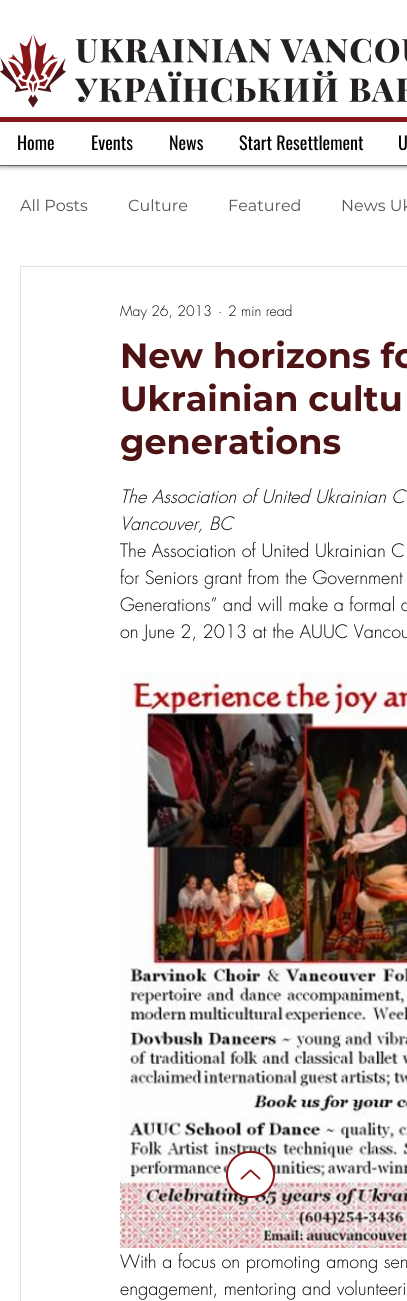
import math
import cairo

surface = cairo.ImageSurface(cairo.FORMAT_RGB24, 407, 1301)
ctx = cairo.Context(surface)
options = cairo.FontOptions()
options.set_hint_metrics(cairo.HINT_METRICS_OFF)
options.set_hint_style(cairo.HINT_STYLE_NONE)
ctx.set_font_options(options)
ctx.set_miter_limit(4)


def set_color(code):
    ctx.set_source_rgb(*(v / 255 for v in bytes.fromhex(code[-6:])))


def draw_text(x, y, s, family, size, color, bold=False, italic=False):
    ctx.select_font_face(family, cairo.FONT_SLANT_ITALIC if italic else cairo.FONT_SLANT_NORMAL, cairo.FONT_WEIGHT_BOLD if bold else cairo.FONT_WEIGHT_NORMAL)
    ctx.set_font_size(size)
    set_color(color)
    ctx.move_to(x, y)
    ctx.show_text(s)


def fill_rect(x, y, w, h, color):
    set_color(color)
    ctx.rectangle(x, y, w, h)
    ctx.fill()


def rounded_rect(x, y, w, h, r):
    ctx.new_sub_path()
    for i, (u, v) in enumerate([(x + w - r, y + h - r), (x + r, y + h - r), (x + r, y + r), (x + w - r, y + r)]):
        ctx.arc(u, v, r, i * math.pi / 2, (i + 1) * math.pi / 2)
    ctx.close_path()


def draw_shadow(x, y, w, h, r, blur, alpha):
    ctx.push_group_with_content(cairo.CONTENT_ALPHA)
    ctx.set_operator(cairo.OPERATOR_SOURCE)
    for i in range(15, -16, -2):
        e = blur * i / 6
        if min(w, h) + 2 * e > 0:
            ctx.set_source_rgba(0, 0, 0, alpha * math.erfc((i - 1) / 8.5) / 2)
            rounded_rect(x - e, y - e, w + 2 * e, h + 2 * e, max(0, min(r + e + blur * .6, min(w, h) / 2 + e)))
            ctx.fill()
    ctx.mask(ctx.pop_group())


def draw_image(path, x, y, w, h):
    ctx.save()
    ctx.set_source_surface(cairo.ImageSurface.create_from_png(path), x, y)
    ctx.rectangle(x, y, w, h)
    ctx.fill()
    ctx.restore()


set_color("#ffffff")
ctx.paint()
ctx.save()
ctx.rectangle(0, 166, 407, 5)
ctx.clip()
set_color("#000000")
draw_shadow(0, 0, 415, 166, 0, 2.5, 0.6)
ctx.restore()
fill_rect(0, 165, 407, 1, "#666666")
draw_image("assets/img1.png", 0, 34, 66, 74)
draw_image("assets/img2.png", 75, 38, 332, 65)
fill_rect(0, 117, 407, 5, "#871719")
draw_text(17, 150, "Home", "Oswald", 18, "#000000")
draw_text(91, 150, "Events", "Oswald", 18, "#000000")
draw_text(169, 150, "News", "Oswald", 18, "#000000")
draw_text(239, 150, "Start Resettlement", "Oswald", 18, "#000000")
draw_text(398, 150, "U", "Oswald", 18, "#000000")
draw_text(20, 211, "All Posts", "Montserrat", 16, "#555555")
draw_text(128, 211, "Culture", "Montserrat", 16, "#555555")
draw_text(228, 211, "Featured", "Montserrat", 16, "#555555")
draw_text(341, 211, "News Uk", "Montserrat", 16, "#555555")
ctx.rectangle(20.5, 266.5, 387, 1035)
set_color("#e0e0e0")
ctx.set_line_width(1)
ctx.stroke()
draw_text(120, 316, "May 26, 2013", "futura Light", 14, "#000000")
draw_text(218, 316, "·", "futura Light", 14, "#000000")
draw_text(228, 316, "2 min read", "futura Light", 14, "#000000")
draw_text(120, 368, "New horizons fo", "Montserrat", 35, "#4e1315", bold=True)
draw_text(120, 411, "Ukrainian cultu", "Montserrat", 35, "#4e1315", bold=True)
draw_text(120, 454, "generations", "Montserrat", 35, "#4e1315", bold=True)
draw_text(120, 503, "The Association of United Ukrainian C", "futura Light", 18, "#000000", italic=True)
draw_text(120, 530, "Vancouver, BC", "futura Light", 18, "#000000", italic=True)
draw_text(120, 557, "The Association of United Ukrainian C", "futura Light", 18, "#000000")
draw_text(120, 584, "for Seniors grant from the Government", "futura Light", 18, "#000000")
draw_text(120, 611, "Generations” and will make a formal a", "futura Light", 18, "#000000")
draw_text(120, 638, "on June 2, 2013 at the AUUC Vancou", "futura Light", 18, "#000000")
draw_image("assets/img3.png", 120, 672, 287, 576)
draw_text(120, 1268, "With a focus on promoting among sen", "futura Light", 18, "#000000")
draw_text(120, 1295, "engagement, mentoring and volunteeri", "futura Light", 18, "#000000")
set_color("#ffffff")
rounded_rect(227, 1152, 47, 45, 22.5)
ctx.fill_preserve()
set_color("#871719")
ctx.set_line_width(2)
ctx.stroke()
draw_image("assets/img4.png", 240, 1169, 21, 11)
surface.write_to_png("output.png")
